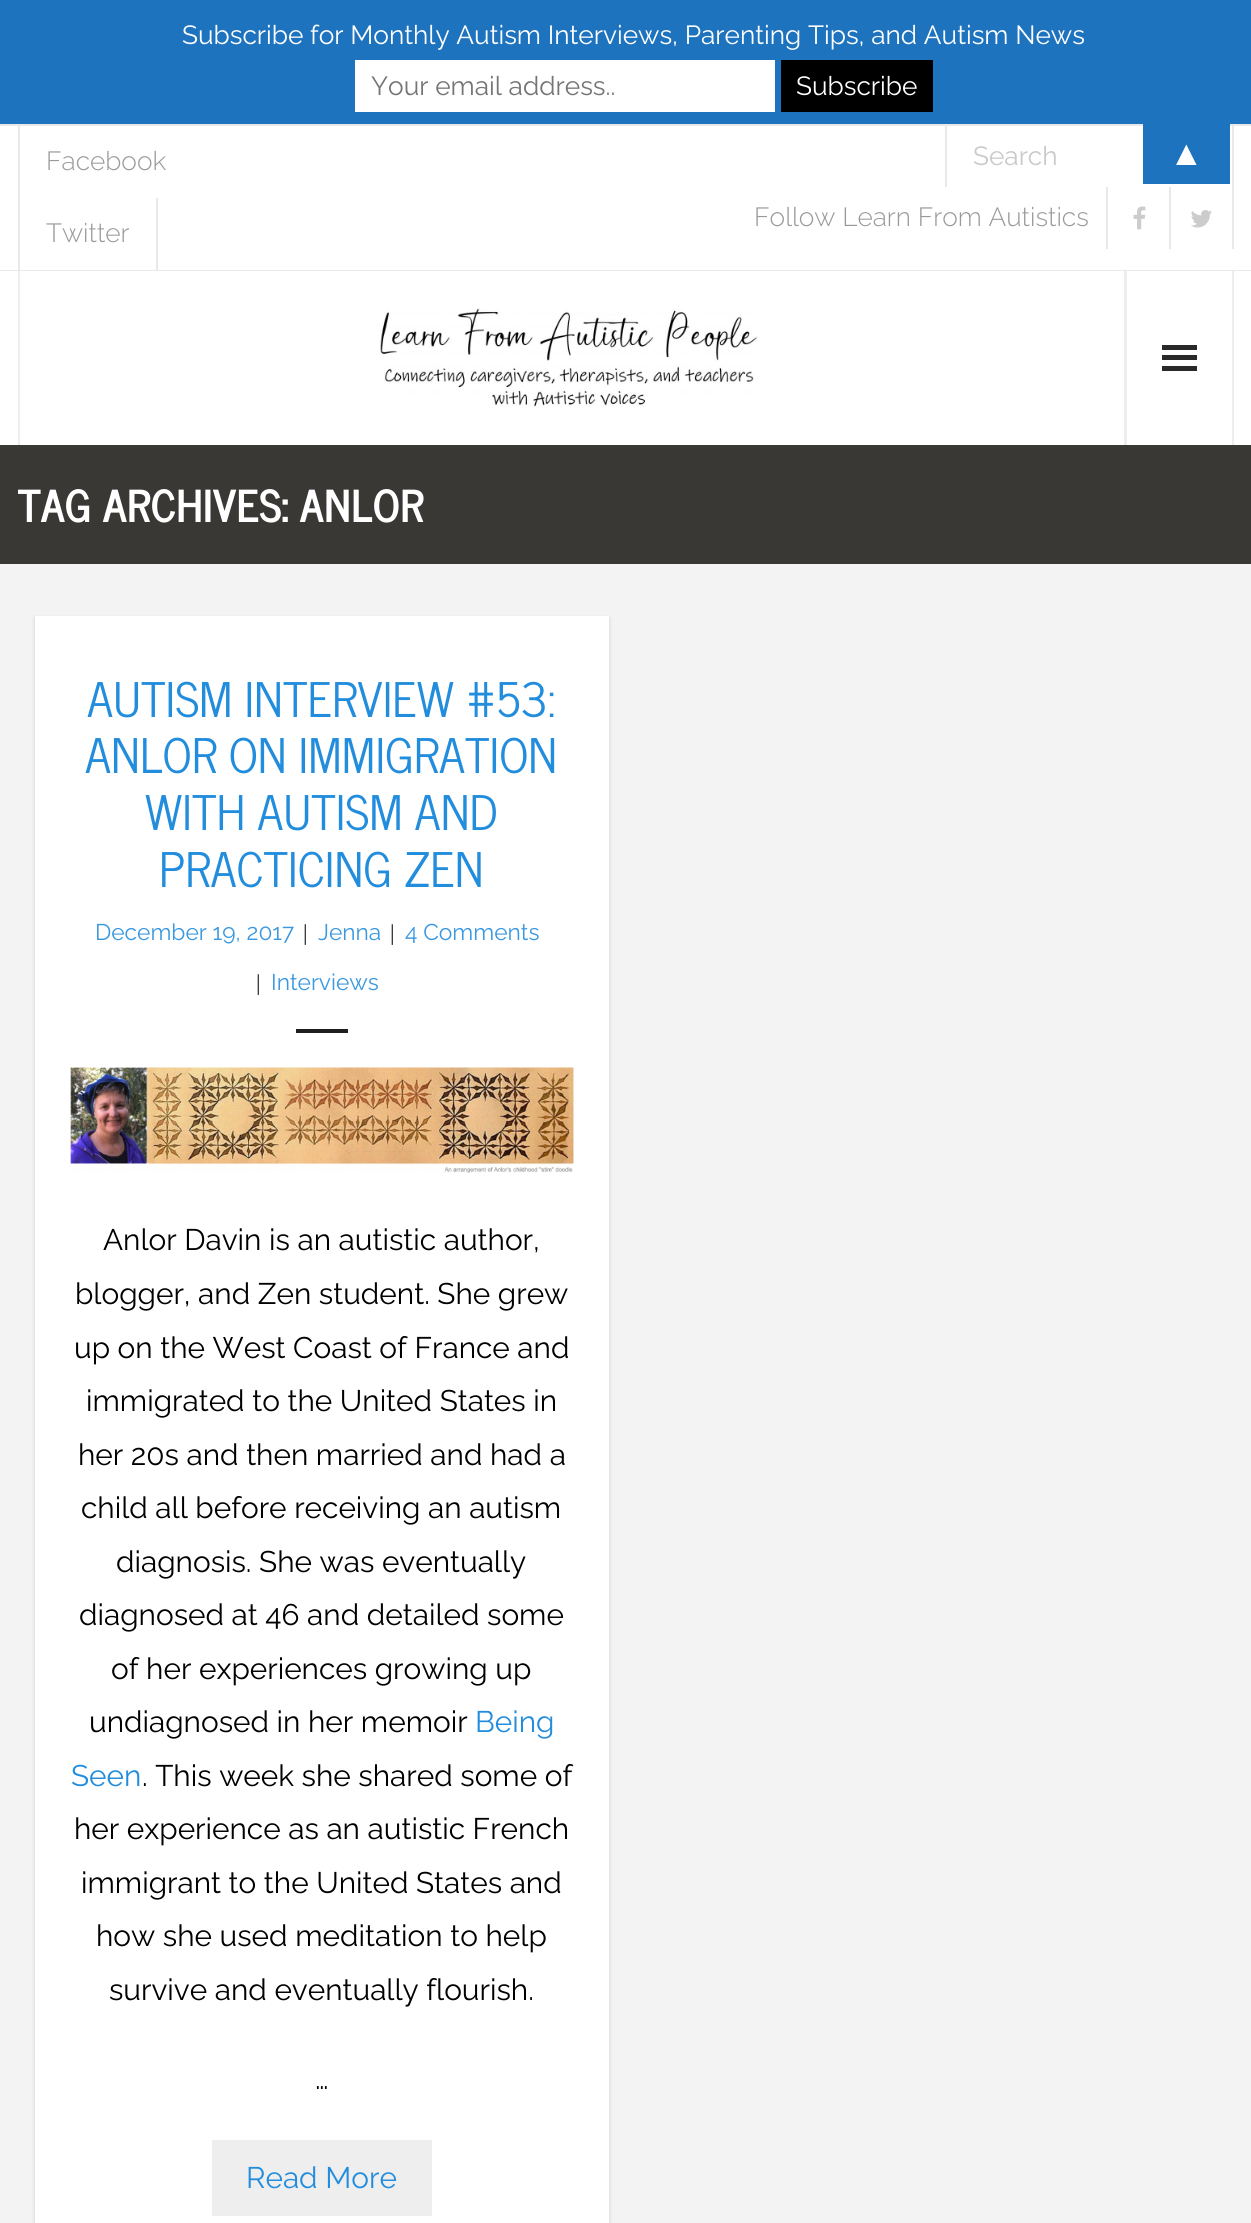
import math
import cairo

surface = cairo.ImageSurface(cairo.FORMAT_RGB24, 1251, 2223)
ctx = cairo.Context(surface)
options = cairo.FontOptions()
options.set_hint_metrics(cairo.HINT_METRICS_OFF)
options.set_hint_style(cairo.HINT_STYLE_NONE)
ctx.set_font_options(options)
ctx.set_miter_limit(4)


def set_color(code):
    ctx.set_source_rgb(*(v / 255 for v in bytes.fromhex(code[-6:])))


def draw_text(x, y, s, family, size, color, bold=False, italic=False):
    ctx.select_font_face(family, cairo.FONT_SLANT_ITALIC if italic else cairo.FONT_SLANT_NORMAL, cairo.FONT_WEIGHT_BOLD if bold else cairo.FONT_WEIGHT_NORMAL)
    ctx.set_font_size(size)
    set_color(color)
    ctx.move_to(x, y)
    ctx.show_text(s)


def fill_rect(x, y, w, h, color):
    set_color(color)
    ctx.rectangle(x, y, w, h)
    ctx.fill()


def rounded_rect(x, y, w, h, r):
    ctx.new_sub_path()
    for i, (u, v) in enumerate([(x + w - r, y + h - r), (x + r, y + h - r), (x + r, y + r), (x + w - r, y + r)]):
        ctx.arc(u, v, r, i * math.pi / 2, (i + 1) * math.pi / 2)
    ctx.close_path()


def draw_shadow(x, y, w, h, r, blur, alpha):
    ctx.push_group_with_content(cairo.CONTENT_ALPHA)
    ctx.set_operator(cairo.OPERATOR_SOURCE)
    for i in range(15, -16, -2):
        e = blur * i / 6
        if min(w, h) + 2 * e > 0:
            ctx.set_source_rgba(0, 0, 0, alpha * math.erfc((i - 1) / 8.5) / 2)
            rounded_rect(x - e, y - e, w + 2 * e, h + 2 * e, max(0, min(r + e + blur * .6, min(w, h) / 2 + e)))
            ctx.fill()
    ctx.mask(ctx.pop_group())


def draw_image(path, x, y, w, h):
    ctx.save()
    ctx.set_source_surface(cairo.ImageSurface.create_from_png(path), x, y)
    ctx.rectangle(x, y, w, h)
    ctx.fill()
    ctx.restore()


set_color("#ffffff")
ctx.paint()
fill_rect(0, 0, 1251, 124, "#1e73be")
draw_text(182, 44, "Subscribe for Monthly Autism Interviews, Parenting Tips, and Autism News", "Raleway", 26.25, "#ffffff")
fill_rect(355, 60, 420, 52, "#ffffff")
draw_text(371, 95, "Your email address..", "Raleway", 26.25, "#757575")
fill_rect(781, 60, 152, 52, "#000000")
draw_text(796, 95, "Subscribe", "Raleway", 26.25, "#ffffff")
fill_rect(0, 124, 1251, 2, "#e9e9e9")
fill_rect(1143, 124, 87, 60, "#1e73be")
draw_text(1169, 165, "▲", "Liberation Sans", 35, "#ffffff")
fill_rect(0, 270, 1251, 1, "#e9e9e9")
fill_rect(18, 126, 2, 144, "#e9e9e9")
draw_text(46, 170, "Facebook", "Raleway Light", 26.25, "#999999")
fill_rect(156, 198, 2, 72, "#e9e9e9")
draw_text(46, 242, "Twitter", "Raleway Light", 26.25, "#999999")
fill_rect(945, 126, 2, 61, "#e9e9e9")
draw_text(973, 165, "Search", "Raleway", 26.25, "#cacaca")
draw_text(754, 226, "Follow Learn From Autistics", "Raleway Light", 26.25, "#999999")
fill_rect(1106, 187, 2, 62, "#e9e9e9")
draw_image("assets/img1.png", 1133, 206, 13, 24)
fill_rect(1232, 126, 2, 123, "#e9e9e9")
fill_rect(1169, 187, 2, 62, "#e9e9e9")
draw_image("assets/img2.png", 1191, 210, 21, 18)
fill_rect(1124, 271, 3, 174, "#eeeeee")
fill_rect(18, 271, 2, 174, "#eeeeee")
draw_image("assets/img3.png", 380, 308, 378, 99)
fill_rect(1232, 271, 2, 174, "#eeeeee")
fill_rect(1162, 345, 35, 5, "#292929")
fill_rect(1162, 355, 35, 5, "#292929")
fill_rect(1162, 366, 35, 5, "#292929")
fill_rect(0, 445, 1251, 119, "#3a3835")
draw_text(18, 522, "TAG ARCHIVES: ANLOR", "News Cycle", 43.75, "#ffffff", bold=True)
fill_rect(0, 564, 1251, 1659, "#f3f3f3")
set_color("#000000")
draw_shadow(35, 618, 574, 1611, 0, 2, 0.15)
fill_rect(35, 616, 574, 1607, "#ffffff")
draw_text(87, 717, "AUTISM INTERVIEW #53:", "News Cycle", 47.25, "#238ddd")
draw_text(85, 773, "ANLOR ON IMMIGRATION", "News Cycle", 47.25, "#238ddd")
draw_text(145, 830, "WITH AUTISM AND", "News Cycle", 47.25, "#238ddd")
draw_text(159, 887, "PRACTICING ZEN", "News Cycle", 47.25, "#238ddd")
draw_text(95, 940, "December 19, 2017", "Raleway", 22.75, "#3998e0")
draw_text(303, 940, "|", "Liberation Serif", 22.75, "#1a1a1a")
draw_text(318, 940, "Jenna", "Raleway", 22.75, "#3998e0")
draw_text(390, 940, "|", "Liberation Serif", 22.75, "#1a1a1a")
draw_text(405, 940, "4 Comments", "Raleway", 22.75, "#3998e0")
draw_text(256, 990, "|", "Liberation Serif", 22.75, "#1a1a1a")
draw_text(271, 990, "Interviews", "Raleway", 22.75, "#3998e0")
fill_rect(296, 1029, 52, 4, "#1e1e1e")
draw_image("assets/img4.png", 70, 1067, 504, 106)
draw_text(103, 1250, "Anlor Davin is an autistic author,", "Raleway", 29.75, "#000000")
draw_text(75, 1304, "blogger, and Zen student. She grew", "Raleway", 29.75, "#000000")
draw_text(74, 1358, "up on the West Coast of France and", "Raleway", 29.75, "#000000")
draw_text(86, 1411, "immigrated to the United States in", "Raleway", 29.75, "#000000")
draw_text(78, 1465, "her 20s and then married and had a", "Raleway", 29.75, "#000000")
draw_text(81, 1518, "child all before receiving an autism", "Raleway", 29.75, "#000000")
draw_text(116, 1572, "diagnosis. She was eventually", "Raleway", 29.75, "#000000")
draw_text(79, 1625, "diagnosed at 46 and detailed some", "Raleway", 29.75, "#000000")
draw_text(111, 1679, "of her experiences growing up", "Raleway", 29.75, "#000000")
draw_text(89, 1732, "undiagnosed in her memoir", "Raleway", 29.75, "#000000")
draw_text(475, 1732, "Being", "Raleway", 29.75, "#238ddd")
draw_text(71, 1786, "Seen", "Raleway", 29.75, "#238ddd")
draw_text(142, 1786, ". This week she shared some of", "Raleway", 29.75, "#000000")
draw_text(74, 1839, "her experience as an autistic French", "Raleway", 29.75, "#000000")
draw_text(81, 1893, "immigrant to the United States and", "Raleway", 29.75, "#000000")
draw_text(96, 1946, "how she used meditation to help", "Raleway", 29.75, "#000000")
draw_text(109, 2000, "survive and eventually flourish.", "Raleway", 29.75, "#000000")
draw_text(315, 2089, "…", "Raleway", 29.75, "#000000")
fill_rect(212, 2140, 220, 76, "#eeeeee")
draw_text(246, 2188, "Read More", "Raleway", 29.75, "#238ddd")
surface.write_to_png("output.png")
